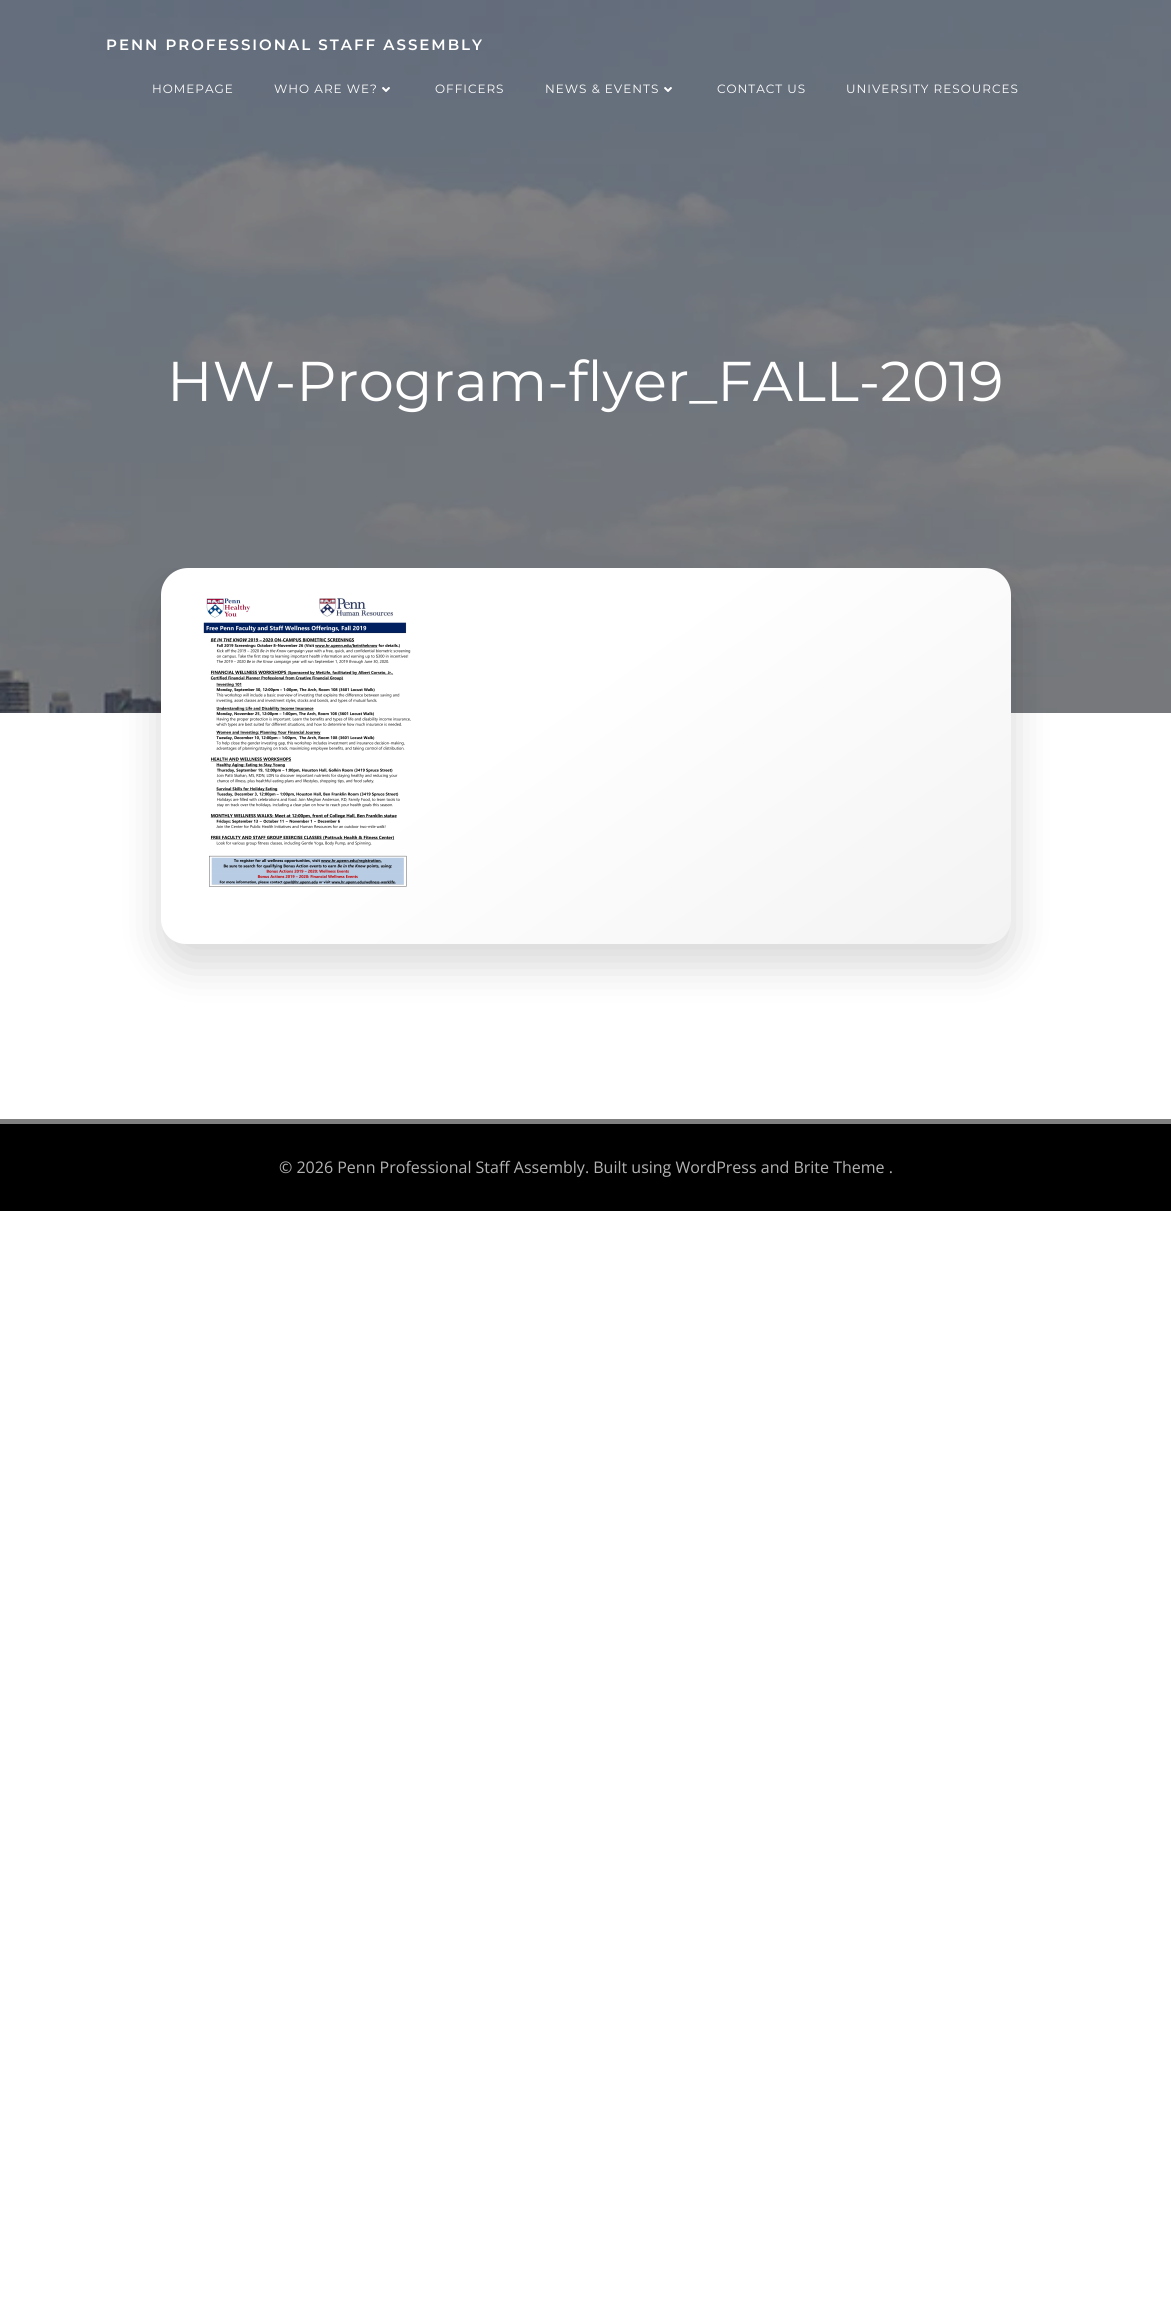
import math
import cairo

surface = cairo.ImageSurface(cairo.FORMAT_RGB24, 1171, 2311)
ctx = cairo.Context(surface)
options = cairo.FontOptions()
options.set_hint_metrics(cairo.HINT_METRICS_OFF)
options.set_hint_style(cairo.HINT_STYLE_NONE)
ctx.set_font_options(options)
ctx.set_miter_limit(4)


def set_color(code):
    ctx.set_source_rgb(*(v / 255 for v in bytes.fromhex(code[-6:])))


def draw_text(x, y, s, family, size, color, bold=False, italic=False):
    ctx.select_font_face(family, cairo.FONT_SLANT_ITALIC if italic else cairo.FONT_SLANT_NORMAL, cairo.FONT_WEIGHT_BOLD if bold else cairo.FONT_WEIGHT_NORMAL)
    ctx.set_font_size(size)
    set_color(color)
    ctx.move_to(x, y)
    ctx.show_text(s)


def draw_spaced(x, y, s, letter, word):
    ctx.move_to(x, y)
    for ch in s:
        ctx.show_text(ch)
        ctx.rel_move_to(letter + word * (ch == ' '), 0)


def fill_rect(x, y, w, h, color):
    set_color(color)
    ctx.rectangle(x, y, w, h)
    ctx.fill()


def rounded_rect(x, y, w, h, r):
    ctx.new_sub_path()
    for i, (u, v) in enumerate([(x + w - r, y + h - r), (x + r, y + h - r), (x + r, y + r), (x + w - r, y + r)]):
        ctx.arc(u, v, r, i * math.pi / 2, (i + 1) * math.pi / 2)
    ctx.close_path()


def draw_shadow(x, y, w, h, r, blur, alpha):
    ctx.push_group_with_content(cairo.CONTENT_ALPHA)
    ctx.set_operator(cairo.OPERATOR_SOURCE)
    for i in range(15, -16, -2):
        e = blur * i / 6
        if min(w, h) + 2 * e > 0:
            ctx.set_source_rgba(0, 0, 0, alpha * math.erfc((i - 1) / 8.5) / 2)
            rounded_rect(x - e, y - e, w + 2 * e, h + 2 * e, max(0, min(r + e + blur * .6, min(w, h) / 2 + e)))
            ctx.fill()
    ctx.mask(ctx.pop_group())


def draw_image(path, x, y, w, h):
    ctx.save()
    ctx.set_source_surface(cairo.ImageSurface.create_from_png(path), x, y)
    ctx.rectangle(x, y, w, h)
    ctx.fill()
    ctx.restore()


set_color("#ffffff")
ctx.paint()
draw_image("assets/img3.png", 0, 0, 1171, 713)
ctx.select_font_face("Montserrat SemiBold")
ctx.set_font_size(15)
set_color("#ffffff")
draw_spaced(106, 50, "PENN PROFESSIONAL STAFF ASSEMBLY", 2, 0)
ctx.select_font_face("Montserrat")
ctx.set_font_size(12)
draw_spaced(152, 93, "HOMEPAGE", 1, 0)
draw_spaced(274, 93, "WHO ARE WE?", 1, 0)
draw_image("assets/img1.png", 382, 87, 8, 5)
draw_spaced(435, 93, "OFFICERS", 1, 0)
draw_spaced(545, 93, "NEWS & EVENTS", 1, 0)
draw_image("assets/img2.png", 664, 87, 8, 5)
draw_spaced(717, 93, "CONTACT US", 1, 0)
draw_spaced(846, 93, "UNIVERSITY RESOURCES", 1, 0)
draw_text(167, 401, "HW-Program-flyer_FALL-2019", "Montserrat", 56, "#ffffff")
ctx.save()
ctx.rectangle(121, 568, 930, 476)
ctx.clip()
set_color("#000000")
draw_shadow(159, 586, 854, 380, 29, 20, 0.15)
ctx.restore()
gradient = cairo.LinearGradient(358, 430, 814, 1082)
gradient.add_color_stop_rgba(0.42, 1, 1, 1, 1)
gradient.add_color_stop_rgba(1, 0.953, 0.953, 0.953, 1)
ctx.set_source(gradient)
ctx.new_path()
ctx.move_to(188, 568)
ctx.line_to(984, 568)
ctx.curve_to(999, 568, 1011, 580, 1011, 595)
ctx.line_to(1011, 919)
ctx.curve_to(1011, 933, 1000, 944, 986, 944)
ctx.line_to(186, 944)
ctx.curve_to(172, 944, 161, 933, 161, 919)
ctx.line_to(161, 595)
ctx.curve_to(161, 580, 173, 568, 188, 568)
ctx.close_path()
ctx.fill()
draw_image("assets/img4.png", 203, 598, 208, 289)
fill_rect(0, 1124, 1171, 87, "#000000")
fill_rect(0, 1119, 1171, 5, "#808080")
draw_text(279, 1173, "© 2026 Penn Professional Staff Assembly. Built using WordPress and Brite Theme .", "Open Sans", 16, "#b3b3b3")
surface.write_to_png("output.png")
